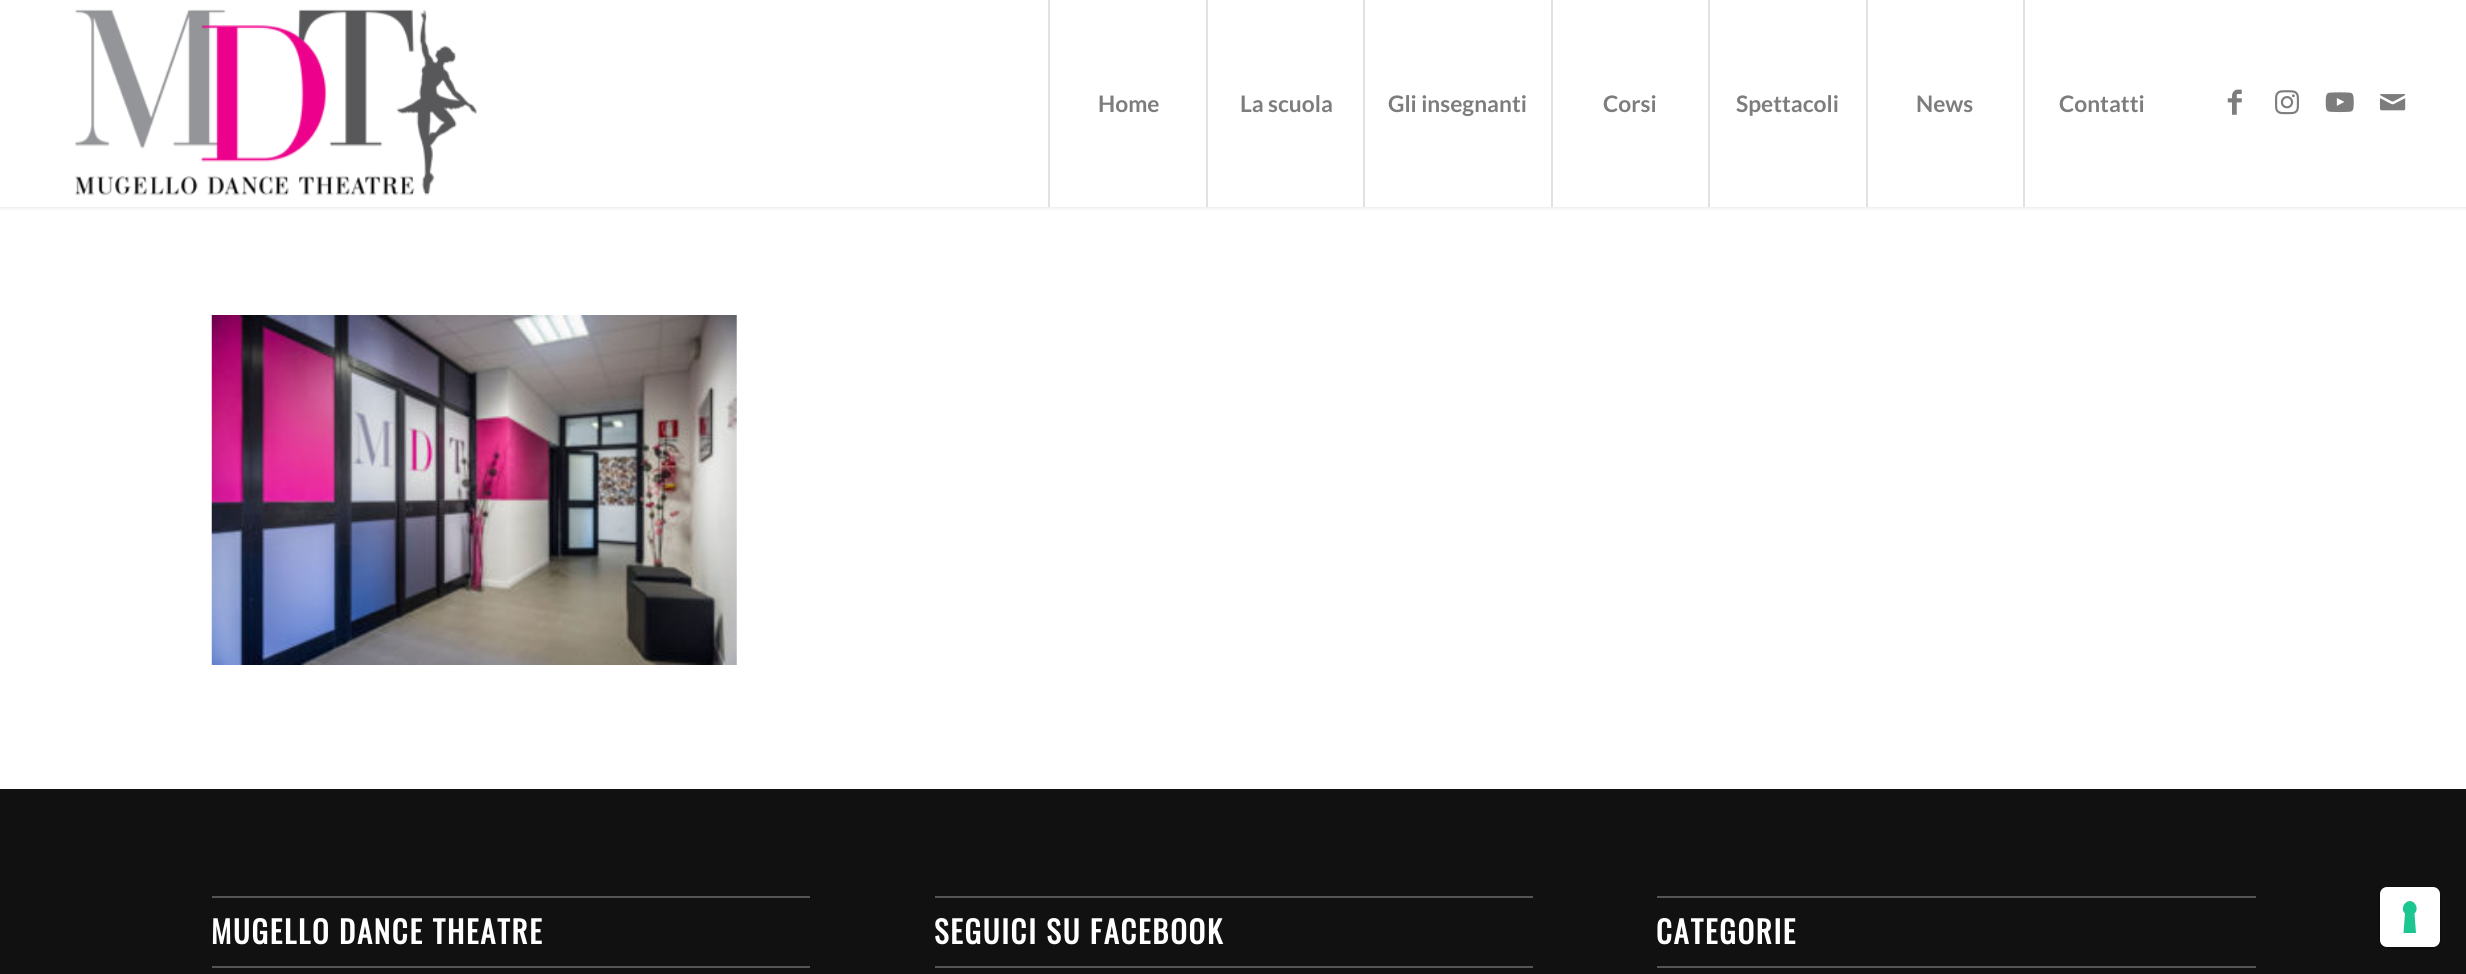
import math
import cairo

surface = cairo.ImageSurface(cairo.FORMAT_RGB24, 2466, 974)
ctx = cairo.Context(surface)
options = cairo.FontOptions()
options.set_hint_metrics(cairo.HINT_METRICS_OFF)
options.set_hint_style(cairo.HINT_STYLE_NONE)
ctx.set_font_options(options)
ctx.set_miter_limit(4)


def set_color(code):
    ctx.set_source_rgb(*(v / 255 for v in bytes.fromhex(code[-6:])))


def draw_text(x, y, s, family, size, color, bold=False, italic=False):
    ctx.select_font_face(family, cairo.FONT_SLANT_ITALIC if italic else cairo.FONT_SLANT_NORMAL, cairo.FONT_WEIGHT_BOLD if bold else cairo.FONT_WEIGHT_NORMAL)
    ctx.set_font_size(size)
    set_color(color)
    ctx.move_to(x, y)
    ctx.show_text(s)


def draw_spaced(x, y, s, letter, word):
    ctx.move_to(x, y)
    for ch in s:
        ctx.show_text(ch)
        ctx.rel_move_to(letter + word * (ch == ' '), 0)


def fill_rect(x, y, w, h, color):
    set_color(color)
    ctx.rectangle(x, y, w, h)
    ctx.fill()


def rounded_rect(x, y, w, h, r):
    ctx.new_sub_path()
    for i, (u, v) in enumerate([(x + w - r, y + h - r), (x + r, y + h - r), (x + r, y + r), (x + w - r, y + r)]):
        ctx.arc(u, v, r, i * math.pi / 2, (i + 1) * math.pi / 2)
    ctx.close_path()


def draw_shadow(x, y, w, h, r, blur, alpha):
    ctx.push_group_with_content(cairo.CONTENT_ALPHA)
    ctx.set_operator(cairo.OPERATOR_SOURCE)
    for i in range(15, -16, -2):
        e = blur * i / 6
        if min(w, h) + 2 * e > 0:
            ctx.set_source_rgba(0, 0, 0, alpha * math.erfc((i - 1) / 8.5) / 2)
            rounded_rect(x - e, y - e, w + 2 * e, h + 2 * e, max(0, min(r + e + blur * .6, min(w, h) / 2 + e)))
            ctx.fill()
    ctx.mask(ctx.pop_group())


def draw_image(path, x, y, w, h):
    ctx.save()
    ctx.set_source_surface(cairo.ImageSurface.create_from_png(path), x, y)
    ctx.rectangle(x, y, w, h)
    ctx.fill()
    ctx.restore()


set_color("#ffffff")
ctx.paint()
set_color("#000000")
draw_shadow(-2, -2, 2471, 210, 0, 2, 0.1)
fill_rect(0, 0, 2466, 207, "#ffffff")
draw_image("assets/img1.png", 75, 9, 402, 187)
fill_rect(1048, 0, 2, 207, "#e1e1e1")
draw_text(1098, 112, "Home", "Lato", 22.75, "#7d7d7d", bold=True)
fill_rect(1206, 0, 2, 207, "#e1e1e1")
draw_text(1240, 112, "La scuola", "Lato", 22.75, "#7d7d7d", bold=True)
fill_rect(1363, 0, 2, 207, "#e1e1e1")
draw_text(1388, 112, "Gli insegnanti", "Lato", 22.75, "#7d7d7d", bold=True)
fill_rect(1551, 0, 2, 207, "#e1e1e1")
draw_text(1603, 112, "Corsi", "Lato", 22.75, "#7d7d7d", bold=True)
fill_rect(1708, 0, 2, 207, "#e1e1e1")
draw_text(1736, 112, "Spettacoli", "Lato", 22.75, "#7d7d7d", bold=True)
fill_rect(1866, 0, 2, 207, "#e1e1e1")
draw_text(1916, 112, "News", "Lato", 22.75, "#7d7d7d", bold=True)
fill_rect(2023, 0, 2, 207, "#e1e1e1")
draw_text(2059, 112, "Contatti", "Lato", 22.75, "#7d7d7d", bold=True)
draw_image("assets/img2.png", 2227, 89, 15, 26)
draw_image("assets/img3.png", 2275, 90, 24, 25)
draw_image("assets/img4.png", 2325, 92, 29, 21)
draw_image("assets/img5.png", 2380, 94, 26, 17)
draw_image("assets/img6.png", 211, 315, 526, 350)
fill_rect(0, 789, 2466, 185, "#111111")
fill_rect(212, 896, 598, 2, "#555555")
fill_rect(212, 966, 598, 2, "#555555")
ctx.select_font_face("Oswald", cairo.FONT_SLANT_NORMAL, cairo.FONT_WEIGHT_BOLD)
ctx.set_font_size(30.75)
set_color("#ffffff")
draw_spaced(211, 944, "MUGELLO DANCE THEATRE", 1.75, 0)
fill_rect(935, 896, 598, 2, "#555555")
fill_rect(935, 966, 598, 2, "#555555")
set_color("#ffffff")
draw_spaced(934, 944, "SEGUICI SU FACEBOOK", 1.75, 0)
fill_rect(1657, 896, 599, 2, "#555555")
fill_rect(1657, 966, 599, 2, "#555555")
set_color("#ffffff")
draw_spaced(1656, 944, "CATEGORIE", 1.75, 0)
rounded_rect(2379, 887, 61, 61, 8)
set_color("#0e0e0e")
ctx.stroke()
set_color("#ffffff")
rounded_rect(2380, 887, 60, 60, 7)
ctx.fill()
set_color("#1cc691")
ctx.set_fill_rule(cairo.FILL_RULE_EVEN_ODD)
ctx.new_path()
ctx.move_to(2410, 901)
ctx.curve_to(2416, 901.5, 2419, 909.5, 2414.5, 913.5)
ctx.line_to(2416, 933)
ctx.line_to(2403.5, 933)
ctx.line_to(2405, 913.5)
ctx.curve_to(2400.5, 909.5, 2403.5, 901.5, 2410, 901)
ctx.close_path()
ctx.fill()
surface.write_to_png("output.png")
